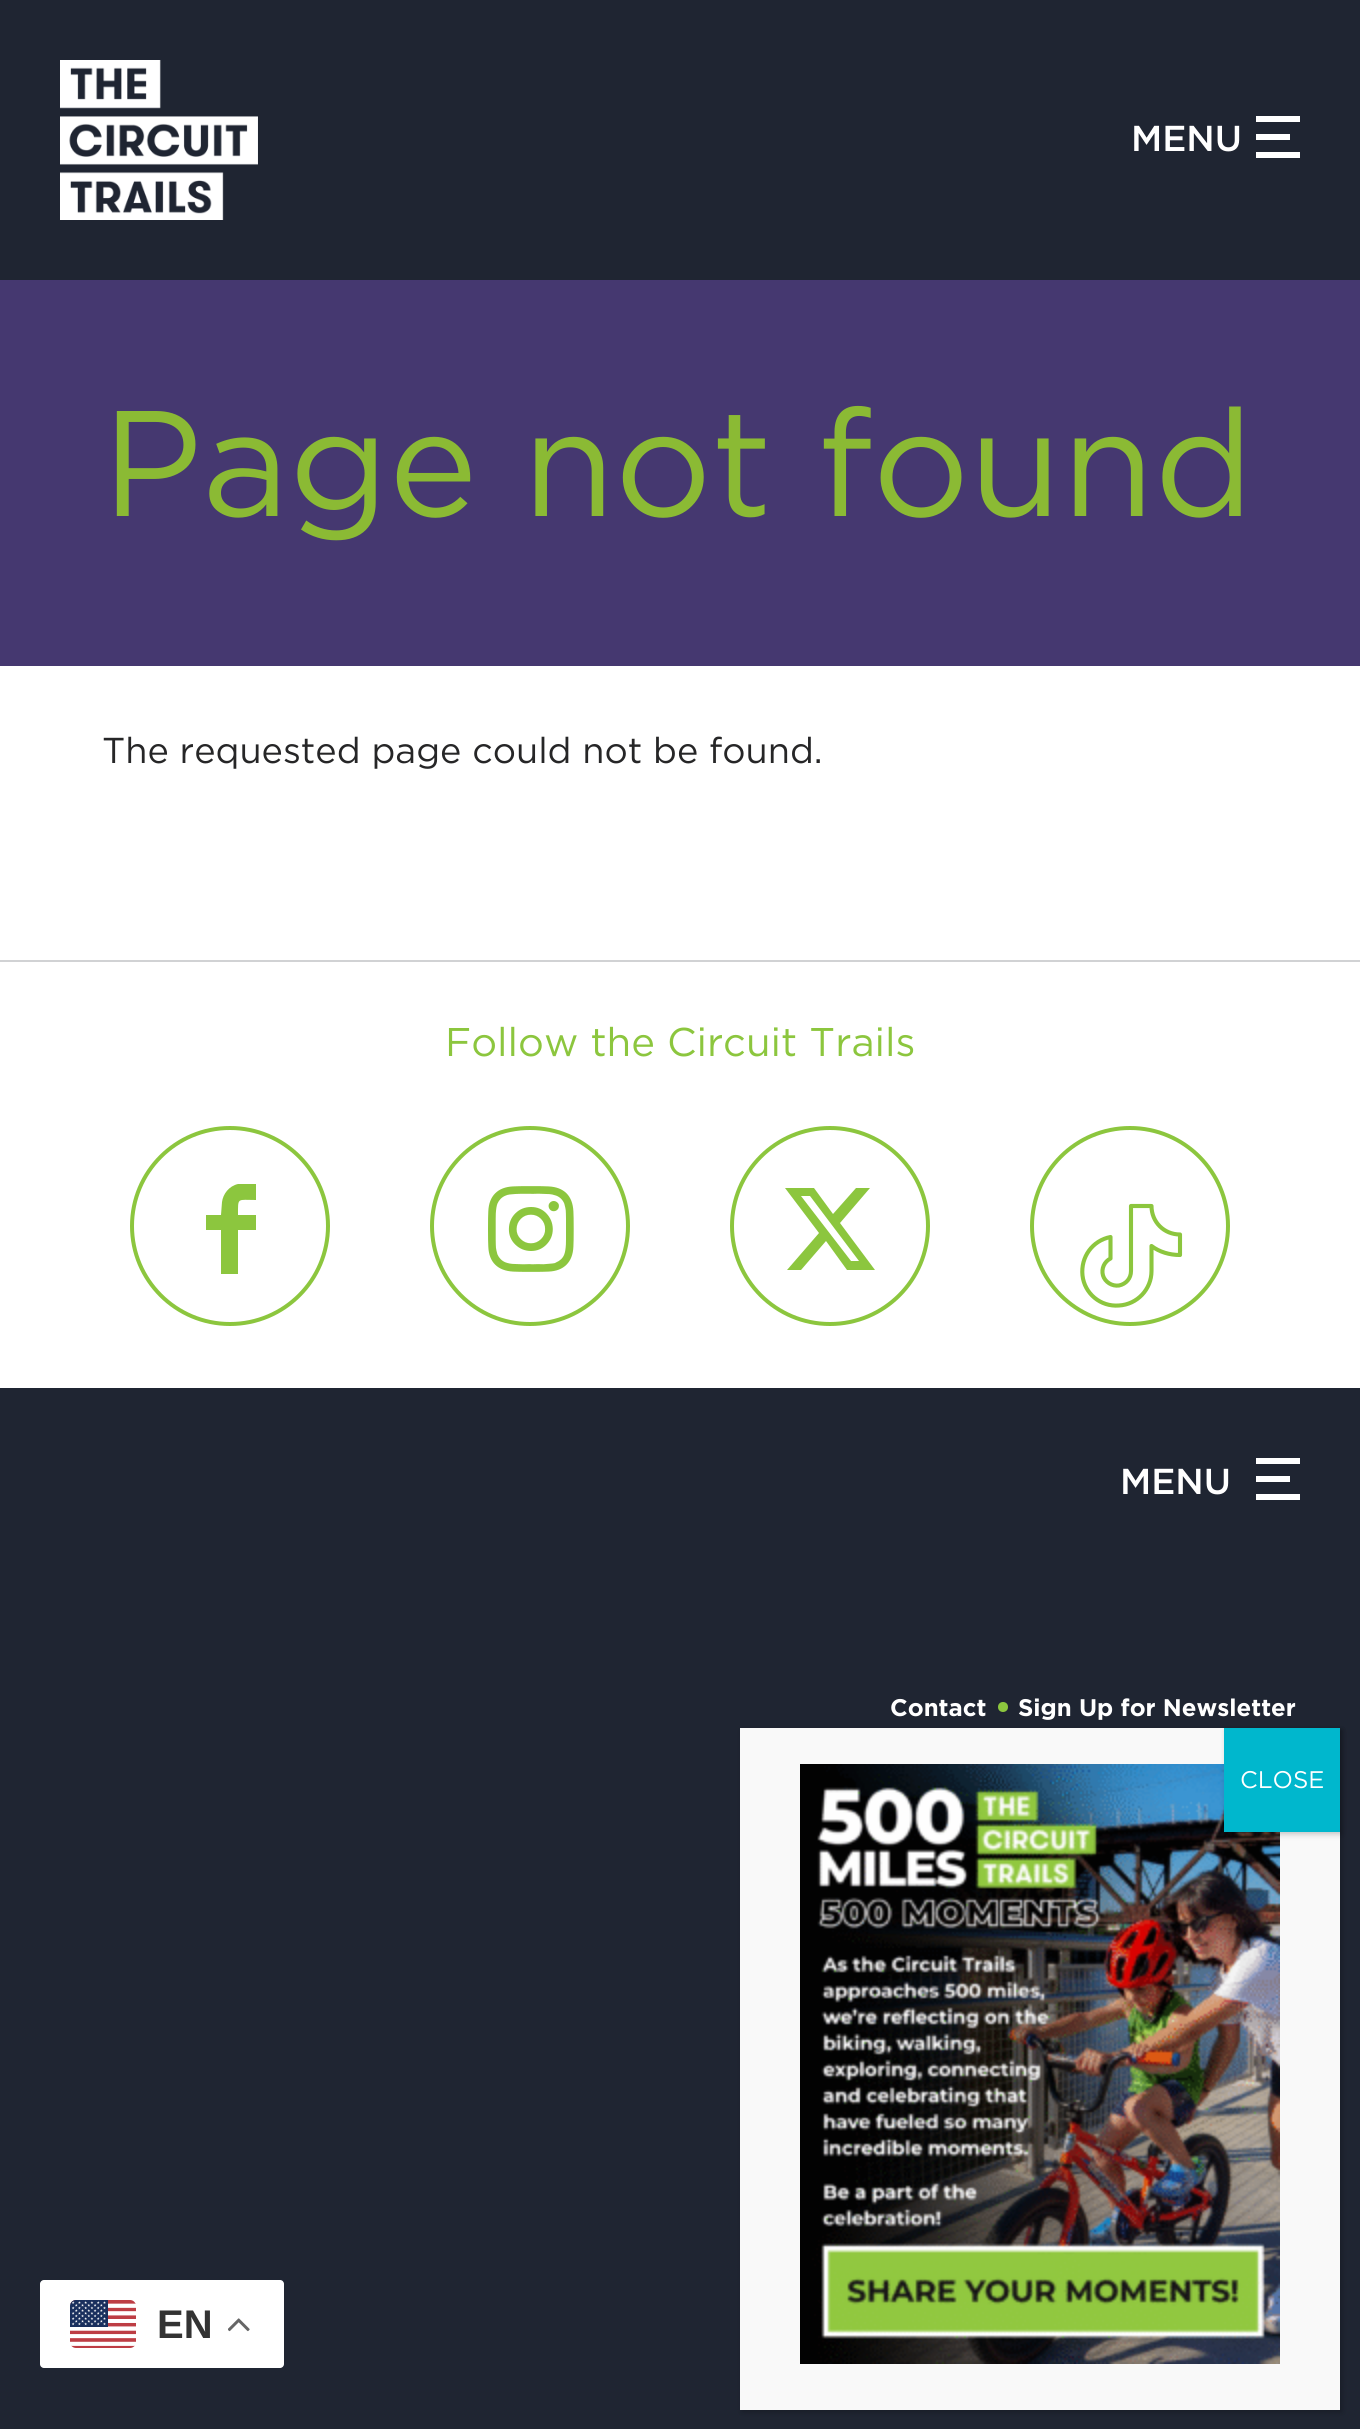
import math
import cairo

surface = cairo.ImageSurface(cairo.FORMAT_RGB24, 1360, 2429)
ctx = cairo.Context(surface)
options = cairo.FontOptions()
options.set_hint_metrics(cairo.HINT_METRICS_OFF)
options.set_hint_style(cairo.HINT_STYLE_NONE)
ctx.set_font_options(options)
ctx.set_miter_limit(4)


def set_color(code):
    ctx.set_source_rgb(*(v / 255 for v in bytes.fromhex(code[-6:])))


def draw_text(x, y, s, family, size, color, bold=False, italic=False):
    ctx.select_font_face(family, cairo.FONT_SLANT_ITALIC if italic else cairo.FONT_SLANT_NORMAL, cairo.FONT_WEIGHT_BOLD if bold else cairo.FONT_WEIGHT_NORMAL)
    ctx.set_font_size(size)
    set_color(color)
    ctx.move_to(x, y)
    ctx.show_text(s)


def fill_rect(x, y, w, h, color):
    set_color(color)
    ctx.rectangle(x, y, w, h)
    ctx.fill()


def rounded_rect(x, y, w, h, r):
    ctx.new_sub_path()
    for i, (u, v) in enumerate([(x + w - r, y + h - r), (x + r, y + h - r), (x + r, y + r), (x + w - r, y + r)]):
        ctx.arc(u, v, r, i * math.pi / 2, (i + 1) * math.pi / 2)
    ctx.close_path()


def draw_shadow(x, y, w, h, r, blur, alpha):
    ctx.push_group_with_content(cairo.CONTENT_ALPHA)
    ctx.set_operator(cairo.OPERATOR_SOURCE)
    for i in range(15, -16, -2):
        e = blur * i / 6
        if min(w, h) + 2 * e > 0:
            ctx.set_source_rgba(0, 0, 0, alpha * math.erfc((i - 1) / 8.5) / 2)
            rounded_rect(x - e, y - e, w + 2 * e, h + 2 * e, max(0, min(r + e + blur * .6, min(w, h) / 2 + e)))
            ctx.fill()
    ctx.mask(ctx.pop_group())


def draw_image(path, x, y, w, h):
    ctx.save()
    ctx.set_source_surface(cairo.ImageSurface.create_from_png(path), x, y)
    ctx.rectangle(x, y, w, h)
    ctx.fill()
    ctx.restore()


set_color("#1f2532")
ctx.paint()
draw_image("assets/img1.png", 60, 60, 198, 160)
draw_text(1131, 151, "MENU", "Gotham Medium", 36, "#ffffff")
fill_rect(1256, 116, 44, 6, "#ffffff")
fill_rect(1256, 134, 34, 6, "#ffffff")
fill_rect(1256, 152, 44, 6, "#ffffff")
fill_rect(0, 280, 1360, 386, "#453870")
draw_text(102, 516, "Page not found", "Gotham", 150, "#8bba34")
fill_rect(0, 666, 1360, 722, "#ffffff")
draw_text(102, 763, "The requested page could not be found.", "Gotham", 36, "#262627")
fill_rect(0, 960, 1360, 2, "#d1d2d4")
draw_text(445, 1056, "Follow the Circuit Trails", "Gotham", 40, "#8cc63e")
ctx.new_path()
ctx.arc(230, 1226, 98, 0, 2 * math.pi)
ctx.set_line_width(4)
ctx.stroke()
ctx.new_path()
ctx.move_to(256, 1200)
ctx.curve_to(237, 1200, 238, 1197, 238, 1215)
ctx.line_to(256, 1215)
ctx.line_to(256, 1230)
ctx.line_to(238, 1230)
ctx.line_to(238, 1274)
ctx.line_to(221, 1274)
ctx.line_to(221, 1230)
ctx.line_to(206, 1230)
ctx.line_to(206, 1215)
ctx.line_to(221, 1215)
ctx.line_to(222, 1202)
ctx.curve_to(223, 1194, 229, 1186, 238, 1184)
ctx.line_to(256, 1184)
ctx.close_path()
ctx.fill()
ctx.arc(530, 1226, 98, 0, 2 * math.pi)
ctx.stroke()
draw_image("assets/img2.png", 488, 1186, 86, 86)
ctx.arc(830, 1226, 98, 0, 2 * math.pi)
ctx.stroke()
ctx.new_path()
ctx.move_to(856, 1188)
ctx.line_to(870, 1188)
ctx.line_to(840, 1223)
ctx.line_to(875, 1270)
ctx.line_to(847, 1270)
ctx.line_to(826, 1241)
ctx.line_to(801, 1270)
ctx.line_to(787, 1270)
ctx.line_to(819, 1233)
ctx.line_to(785, 1188)
ctx.line_to(814, 1188)
ctx.line_to(833, 1214)
ctx.close_path()
ctx.move_to(851, 1261)
ctx.line_to(859, 1261)
ctx.line_to(810, 1196)
ctx.line_to(801, 1196)
ctx.close_path()
ctx.fill()
ctx.arc(1130, 1226, 98, 0, 2 * math.pi)
ctx.stroke()
ctx.new_path()
ctx.move_to(1151.5, 1246)
ctx.curve_to(1159.5, 1252, 1169.5, 1255, 1180, 1255)
ctx.line_to(1180, 1234.5)
ctx.curve_to(1164, 1234.5, 1151.5, 1222, 1151.5, 1206)
ctx.line_to(1131, 1206)
ctx.line_to(1131, 1271)
ctx.curve_to(1131, 1278.5, 1126, 1284, 1119, 1285.5)
ctx.curve_to(1112, 1286.5, 1105, 1282, 1103, 1275.5)
ctx.curve_to(1101, 1268.5, 1104.5, 1261.5, 1110.5, 1258.5)
ctx.line_to(1110.5, 1237)
ctx.curve_to(1092.5, 1240.5, 1080.5, 1257, 1082.5, 1275.5)
ctx.curve_to(1084.5, 1293.5, 1100.5, 1307, 1119, 1305.5)
ctx.curve_to(1137, 1304.5, 1151.5, 1289.5, 1151.5, 1271)
ctx.close_path()
ctx.set_line_width(4.1)
ctx.set_line_cap(cairo.LINE_CAP_ROUND)
ctx.set_line_join(cairo.LINE_JOIN_ROUND)
ctx.stroke()
draw_text(1120, 1494, "MENU", "Gotham Medium", 36, "#ffffff")
fill_rect(1256, 1458, 44, 6, "#ffffff")
fill_rect(1256, 1476, 34, 6, "#ffffff")
fill_rect(1256, 1494, 44, 6, "#ffffff")
draw_text(890, 1716, "Contact", "Gotham", 24, "#ffffff", bold=True)
set_color("#8cc63e")
ctx.new_path()
ctx.arc(1003, 1707, 5, 0, 2 * math.pi)
ctx.fill()
draw_text(1018, 1716, "Sign Up for Newsletter", "Gotham", 24, "#ffffff", bold=True)
set_color("#020202")
draw_shadow(742, 1730, 600, 682, 0, 3, 0.23)
fill_rect(740, 1728, 600, 682, "#f9f9f9")
draw_image("assets/img3.png", 800, 1764, 480, 600)
set_color("#020202")
draw_shadow(1226, 1730, 116, 104, 0, 3, 0.23)
fill_rect(1224, 1728, 116, 104, "#00b7cd")
draw_text(1240, 1788, "CLOSE", "Gotham", 24, "#ffffff")
rounded_rect(40, 2280, 244, 88, 4)
ctx.fill()
draw_image("assets/img4.png", 70, 2300, 66, 48)
draw_text(157, 2338, "EN", "Liberation Sans", 40, "#333333", bold=True)
draw_image("assets/img5.png", 228, 2318, 22, 14)
surface.write_to_png("output.png")
